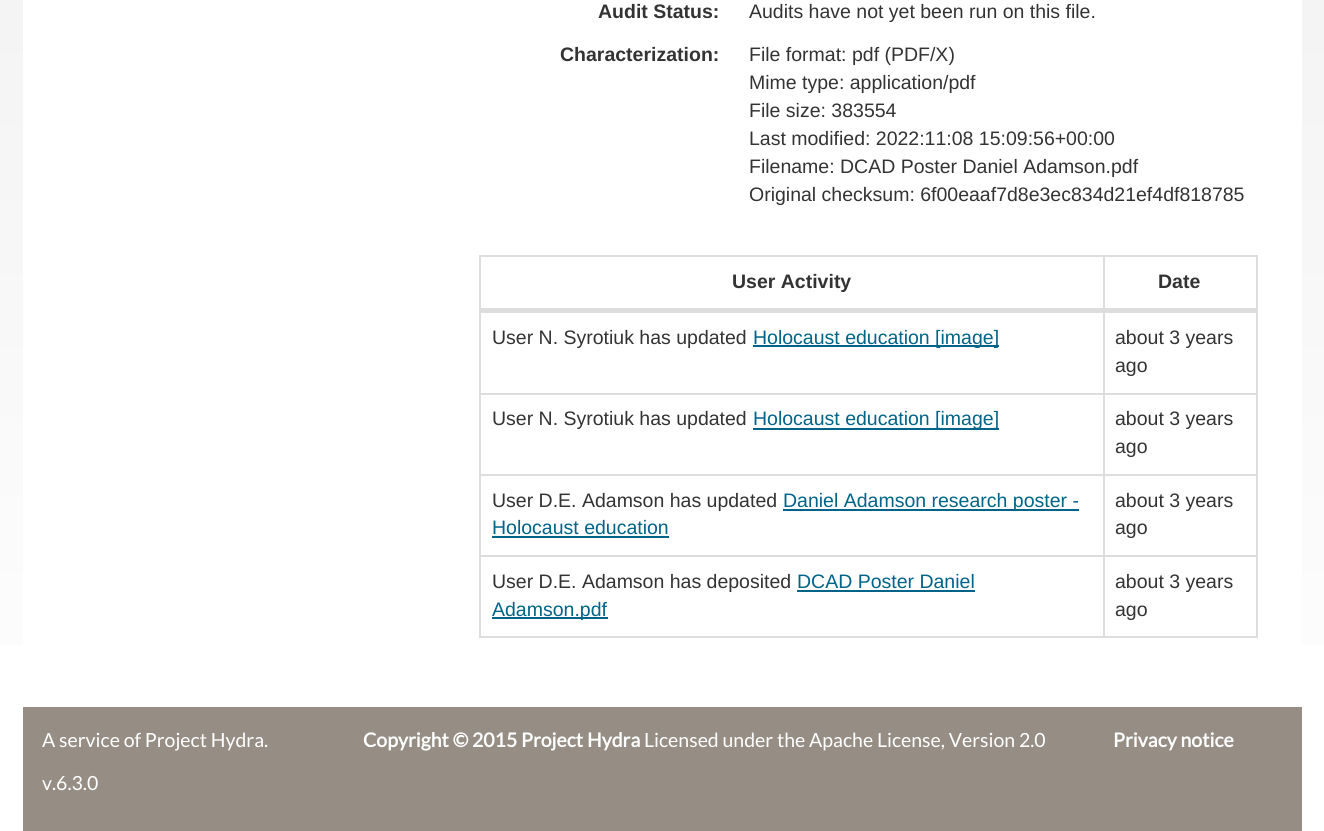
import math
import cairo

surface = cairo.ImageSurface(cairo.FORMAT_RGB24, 1324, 831)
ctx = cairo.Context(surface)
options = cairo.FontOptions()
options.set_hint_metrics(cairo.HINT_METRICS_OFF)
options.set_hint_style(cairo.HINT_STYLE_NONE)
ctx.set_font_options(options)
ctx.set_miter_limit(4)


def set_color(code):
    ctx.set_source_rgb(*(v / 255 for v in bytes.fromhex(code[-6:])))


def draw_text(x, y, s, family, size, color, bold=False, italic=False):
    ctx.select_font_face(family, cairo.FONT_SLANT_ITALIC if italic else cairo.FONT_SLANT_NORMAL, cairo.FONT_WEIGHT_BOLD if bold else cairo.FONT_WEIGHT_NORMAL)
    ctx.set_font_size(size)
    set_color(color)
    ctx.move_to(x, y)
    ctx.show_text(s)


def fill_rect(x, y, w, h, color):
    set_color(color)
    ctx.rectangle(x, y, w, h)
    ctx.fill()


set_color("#ffffff")
ctx.paint()
gradient = cairo.LinearGradient(662, -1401, 662, 831)
gradient.add_color_stop_rgba(0, 0.882, 0.882, 0.882, 1)
gradient.add_color_stop_rgba(1, 1, 1, 1, 1)
ctx.set_source(gradient)
ctx.rectangle(0, 0, 1324, 645)
ctx.fill()
fill_rect(23, 0, 1279, 645, "#ffffff")
draw_text(598, 18, "Audit Status:", "Liberation Sans", 19.5, "#333333", bold=True)
draw_text(749, 18, "Audits have not yet been run on this file.", "Liberation Sans", 19.5, "#333333")
draw_text(560, 61, "Characterization:", "Liberation Sans", 19.5, "#333333", bold=True)
draw_text(749, 61, "File format: pdf (PDF/X)", "Liberation Sans", 19.5, "#333333")
draw_text(749, 89, "Mime type: application/pdf", "Liberation Sans", 19.5, "#333333")
draw_text(749, 117, "File size: 383554", "Liberation Sans", 19.5, "#333333")
draw_text(749, 145, "Last modified: 2022:11:08 15:09:56+00:00", "Liberation Sans", 19.5, "#333333")
draw_text(749, 173, "Filename: DCAD Poster Daniel Adamson.pdf", "Liberation Sans", 19.5, "#333333")
draw_text(749, 201, "Original checksum: 6f00eaaf7d8e3ec834d21ef4df818785", "Liberation Sans", 19.5, "#333333")
fill_rect(479, 255, 778, 2, "#dddddd")
fill_rect(1256, 255, 2, 383, "#dddddd")
fill_rect(479, 636, 778, 2, "#dddddd")
fill_rect(479, 255, 2, 383, "#dddddd")
draw_text(732, 288, "User Activity", "Liberation Sans", 19.5, "#333333", bold=True)
fill_rect(1103, 311, 154, 2, "#dddddd")
fill_rect(1103, 393, 154, 2, "#dddddd")
fill_rect(1103, 474, 154, 2, "#dddddd")
fill_rect(1103, 555, 154, 2, "#dddddd")
fill_rect(1103, 555, 2, 83, "#dddddd")
fill_rect(479, 555, 625, 2, "#dddddd")
fill_rect(1103, 474, 2, 83, "#dddddd")
fill_rect(479, 474, 625, 2, "#dddddd")
fill_rect(1103, 393, 2, 83, "#dddddd")
fill_rect(479, 393, 625, 2, "#dddddd")
fill_rect(1103, 255, 2, 140, "#dddddd")
fill_rect(479, 308, 778, 3, "#dddddd")
draw_text(1158, 288, "Date", "Liberation Sans", 19.5, "#333333", bold=True)
fill_rect(479, 311, 625, 2, "#dddddd")
draw_text(492, 344, "User N. Syrotiuk has updated", "Liberation Sans", 19.5, "#333333")
fill_rect(753, 345, 246, 2, "#006388")
draw_text(753, 344, "Holocaust education [image]", "Liberation Sans", 19.5, "#006388")
draw_text(1115, 344, "about 3 years", "Liberation Sans", 19.5, "#333333")
draw_text(1115, 372, "ago", "Liberation Sans", 19.5, "#333333")
draw_text(492, 425, "User N. Syrotiuk has updated", "Liberation Sans", 19.5, "#333333")
fill_rect(753, 428, 246, 2, "#006388")
draw_text(753, 425, "Holocaust education [image]", "Liberation Sans", 19.5, "#006388")
draw_text(1115, 425, "about 3 years", "Liberation Sans", 19.5, "#333333")
draw_text(1115, 453, "ago", "Liberation Sans", 19.5, "#333333")
draw_text(492, 507, "User D.E. Adamson has updated", "Liberation Sans", 19.5, "#333333")
fill_rect(783, 509, 296, 2, "#006388")
draw_text(783, 507, "Daniel Adamson research poster -", "Liberation Sans", 19.5, "#006388")
draw_text(492, 534, "Holocaust education", "Liberation Sans", 19.5, "#006388")
fill_rect(492, 536, 177, 2, "#006388")
draw_text(1115, 507, "about 3 years", "Liberation Sans", 19.5, "#333333")
draw_text(1115, 534, "ago", "Liberation Sans", 19.5, "#333333")
draw_text(492, 588, "User D.E. Adamson has deposited", "Liberation Sans", 19.5, "#333333")
draw_text(797, 588, "DCAD Poster Daniel", "Liberation Sans", 19.5, "#006388")
fill_rect(797, 590, 178, 2, "#006388")
fill_rect(492, 617, 116, 2, "#006388")
draw_text(492, 616, "Adamson.pdf", "Liberation Sans", 19.5, "#006388")
draw_text(1115, 588, "about 3 years", "Liberation Sans", 19.5, "#333333")
draw_text(1115, 616, "ago", "Liberation Sans", 19.5, "#333333")
fill_rect(23, 707, 1279, 124, "#968e85")
draw_text(42, 747, "A service of Project Hydra.", "Lato", 19.5, "#ffffff")
draw_text(42, 790, "v.6.3.0", "Lato", 19.5, "#ffffff")
draw_text(363, 747, "Copyright © 2015 Project Hydra", "Lato", 19.5, "#ffffff", bold=True)
draw_text(644, 747, "Licensed under the Apache License, Version 2.0", "Lato", 19.5, "#ffffff")
draw_text(1113, 747, "Privacy notice", "Lato", 19.5, "#ffffff", bold=True)
surface.write_to_png("output.png")
